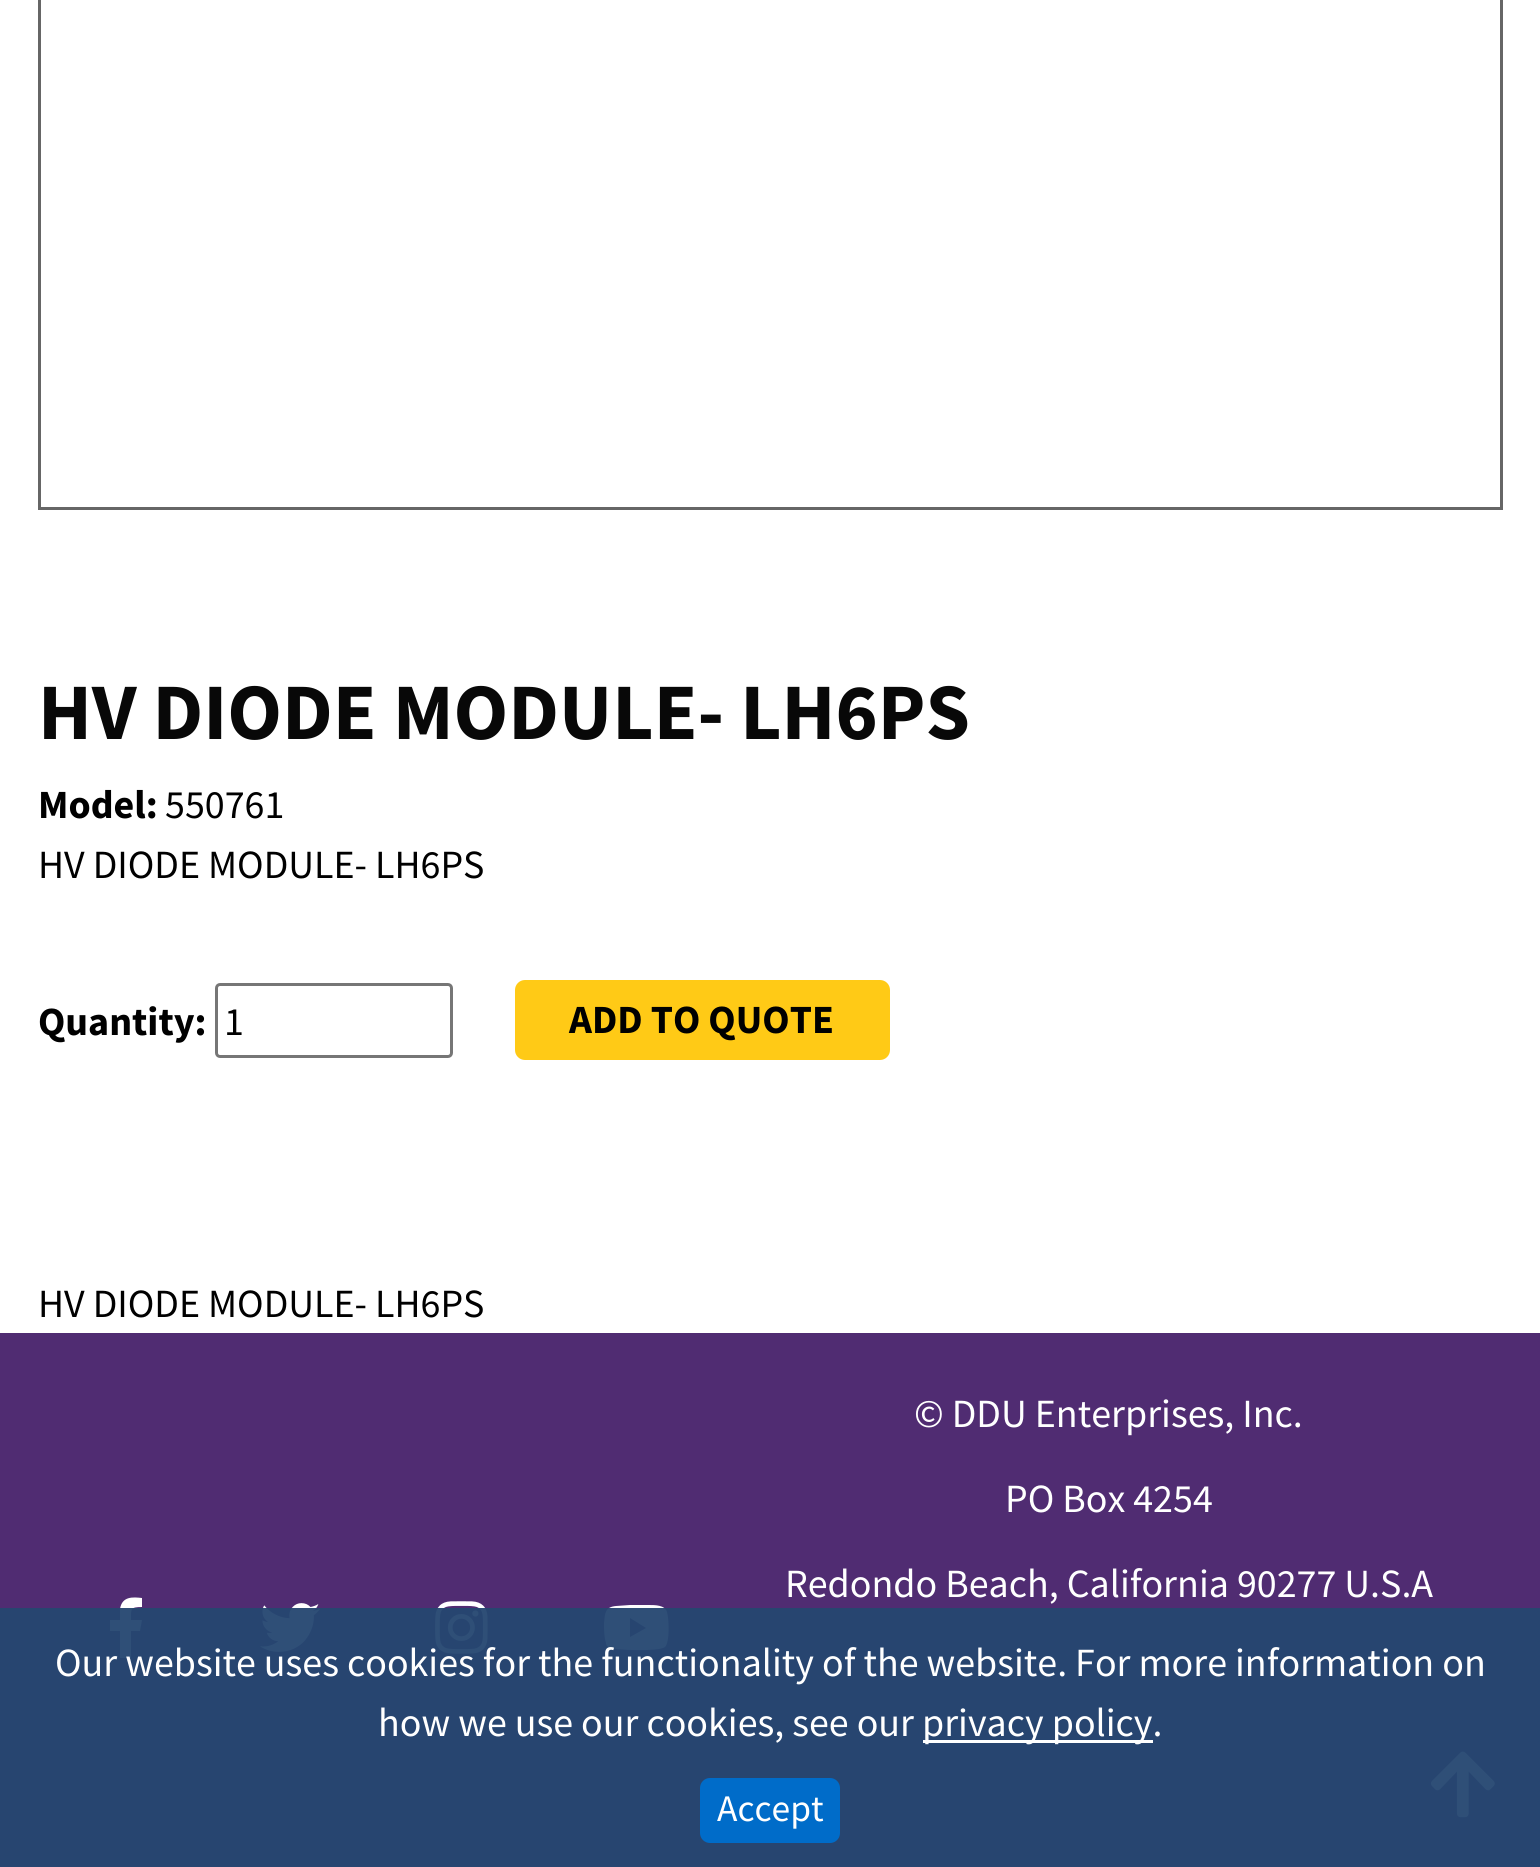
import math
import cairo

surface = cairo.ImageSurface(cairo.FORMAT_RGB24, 1540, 1867)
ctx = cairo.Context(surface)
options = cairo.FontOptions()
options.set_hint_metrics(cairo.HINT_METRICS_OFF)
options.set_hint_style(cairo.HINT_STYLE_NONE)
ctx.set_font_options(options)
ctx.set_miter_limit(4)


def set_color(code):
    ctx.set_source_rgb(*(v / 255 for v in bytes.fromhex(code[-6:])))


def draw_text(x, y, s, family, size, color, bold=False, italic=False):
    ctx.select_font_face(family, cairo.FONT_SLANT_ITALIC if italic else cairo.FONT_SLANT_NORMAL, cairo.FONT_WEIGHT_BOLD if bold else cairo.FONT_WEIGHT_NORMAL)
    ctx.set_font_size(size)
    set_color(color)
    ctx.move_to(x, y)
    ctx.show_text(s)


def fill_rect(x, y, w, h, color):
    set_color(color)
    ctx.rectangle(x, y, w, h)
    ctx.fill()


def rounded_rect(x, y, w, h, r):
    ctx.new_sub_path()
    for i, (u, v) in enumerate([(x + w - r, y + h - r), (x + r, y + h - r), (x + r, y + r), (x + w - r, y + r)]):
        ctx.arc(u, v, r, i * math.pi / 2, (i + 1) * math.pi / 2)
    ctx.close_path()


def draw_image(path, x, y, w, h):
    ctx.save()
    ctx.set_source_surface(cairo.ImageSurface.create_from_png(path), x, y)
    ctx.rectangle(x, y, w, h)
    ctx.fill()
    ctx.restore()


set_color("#ffffff")
ctx.paint()
ctx.rectangle(39.5, -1.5, 1462, 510)
set_color("#666666")
ctx.set_line_width(3)
ctx.stroke()
draw_text(38, 739, "HV DIODE MODULE- LH6PS", "Source Sans Pro", 80, "#080808", bold=True)
draw_text(38, 818, "Model:", "Source Sans Pro", 40, "#000000", bold=True)
draw_text(165, 818, "550761", "Source Sans Pro", 40, "#000000")
draw_text(38, 878, "HV DIODE MODULE- LH6PS", "Source Sans Pro", 40, "#000000")
draw_text(38, 1035, "Quantity:", "Source Sans Pro", 40, "#000000", bold=True)
rounded_rect(216.5, 984.5, 235, 72, 3.5)
set_color("#767676")
ctx.stroke()
draw_text(224, 1035, "1", "Source Sans Pro", 40, "#000000")
set_color("#ffca16")
rounded_rect(516.5, 981.5, 372, 77, 8.5)
ctx.fill_preserve()
ctx.stroke()
draw_text(569, 1033, "ADD TO QUOTE", "Source Sans Pro", 40, "#000000", bold=True)
draw_text(38, 1317, "HV DIODE MODULE- LH6PS", "Source Sans Pro", 40, "#000000")
fill_rect(0, 1333, 1540, 534, "#502c72")
set_color("#ffffff")
ctx.new_path()
ctx.move_to(140, 1631)
ctx.line_to(131, 1631)
ctx.line_to(131, 1658)
ctx.line_to(120, 1658)
ctx.line_to(120, 1631)
ctx.line_to(110, 1631)
ctx.line_to(110, 1620)
ctx.line_to(120, 1620)
ctx.line_to(120, 1609)
ctx.curve_to(122, 1596, 133, 1597, 142, 1598)
ctx.line_to(142, 1607)
ctx.curve_to(130, 1607, 131, 1609, 131, 1620)
ctx.line_to(142, 1620)
ctx.close_path()
ctx.fill()
draw_image("assets/img1.png", 260, 1603, 60, 49)
draw_image("assets/img2.png", 435, 1601, 53, 53)
ctx.new_path()
ctx.move_to(667, 1612)
ctx.curve_to(669, 1619, 670, 1642, 665, 1647)
ctx.curve_to(659, 1652, 615, 1650, 610, 1648)
ctx.curve_to(608, 1647, 606, 1646, 606, 1643)
ctx.curve_to(604, 1637, 604, 1629, 604, 1623)
ctx.curve_to(605, 1613, 605, 1607, 616, 1606)
ctx.line_to(630, 1605)
ctx.line_to(649, 1605)
ctx.curve_to(655, 1605, 665, 1605, 667, 1612)
ctx.close_path()
ctx.move_to(630, 1637)
ctx.line_to(646, 1628)
ctx.line_to(630, 1618)
ctx.close_path()
ctx.fill()
draw_image("assets/img3.png", 1430, 1751, 65, 67)
ctx.set_source_rgba(0.145, 0.278, 0.443, 0.95)
ctx.rectangle(0, 1608, 1540, 259)
ctx.fill()
draw_text(55, 1676, "Our website uses cookies for the functionality of the website. For more information on", "Source Sans Pro", 40, "#ffffff")
draw_text(378, 1736, "how we use our cookies, see our", "Source Sans Pro", 40, "#ffffff")
fill_rect(923, 1740, 230, 3, "#ffffff")
draw_text(922, 1736, "privacy policy.", "Source Sans Pro", 40, "#ffffff")
set_color("#006cc9")
rounded_rect(701.5, 1779.5, 137, 62, 8.5)
ctx.fill_preserve()
ctx.stroke()
draw_text(717, 1821, "Accept", "Source Sans Pro", 37.5, "#ffffff")
draw_text(914, 1427, "© DDU Enterprises, Inc.", "Source Sans Pro", 40, "#ffffff")
draw_text(1005, 1512, "PO Box 4254", "Source Sans Pro", 40, "#ffffff")
draw_text(785, 1597, "Redondo Beach, California 90277 U.S.A", "Source Sans Pro", 40, "#ffffff")
surface.write_to_png("output.png")
